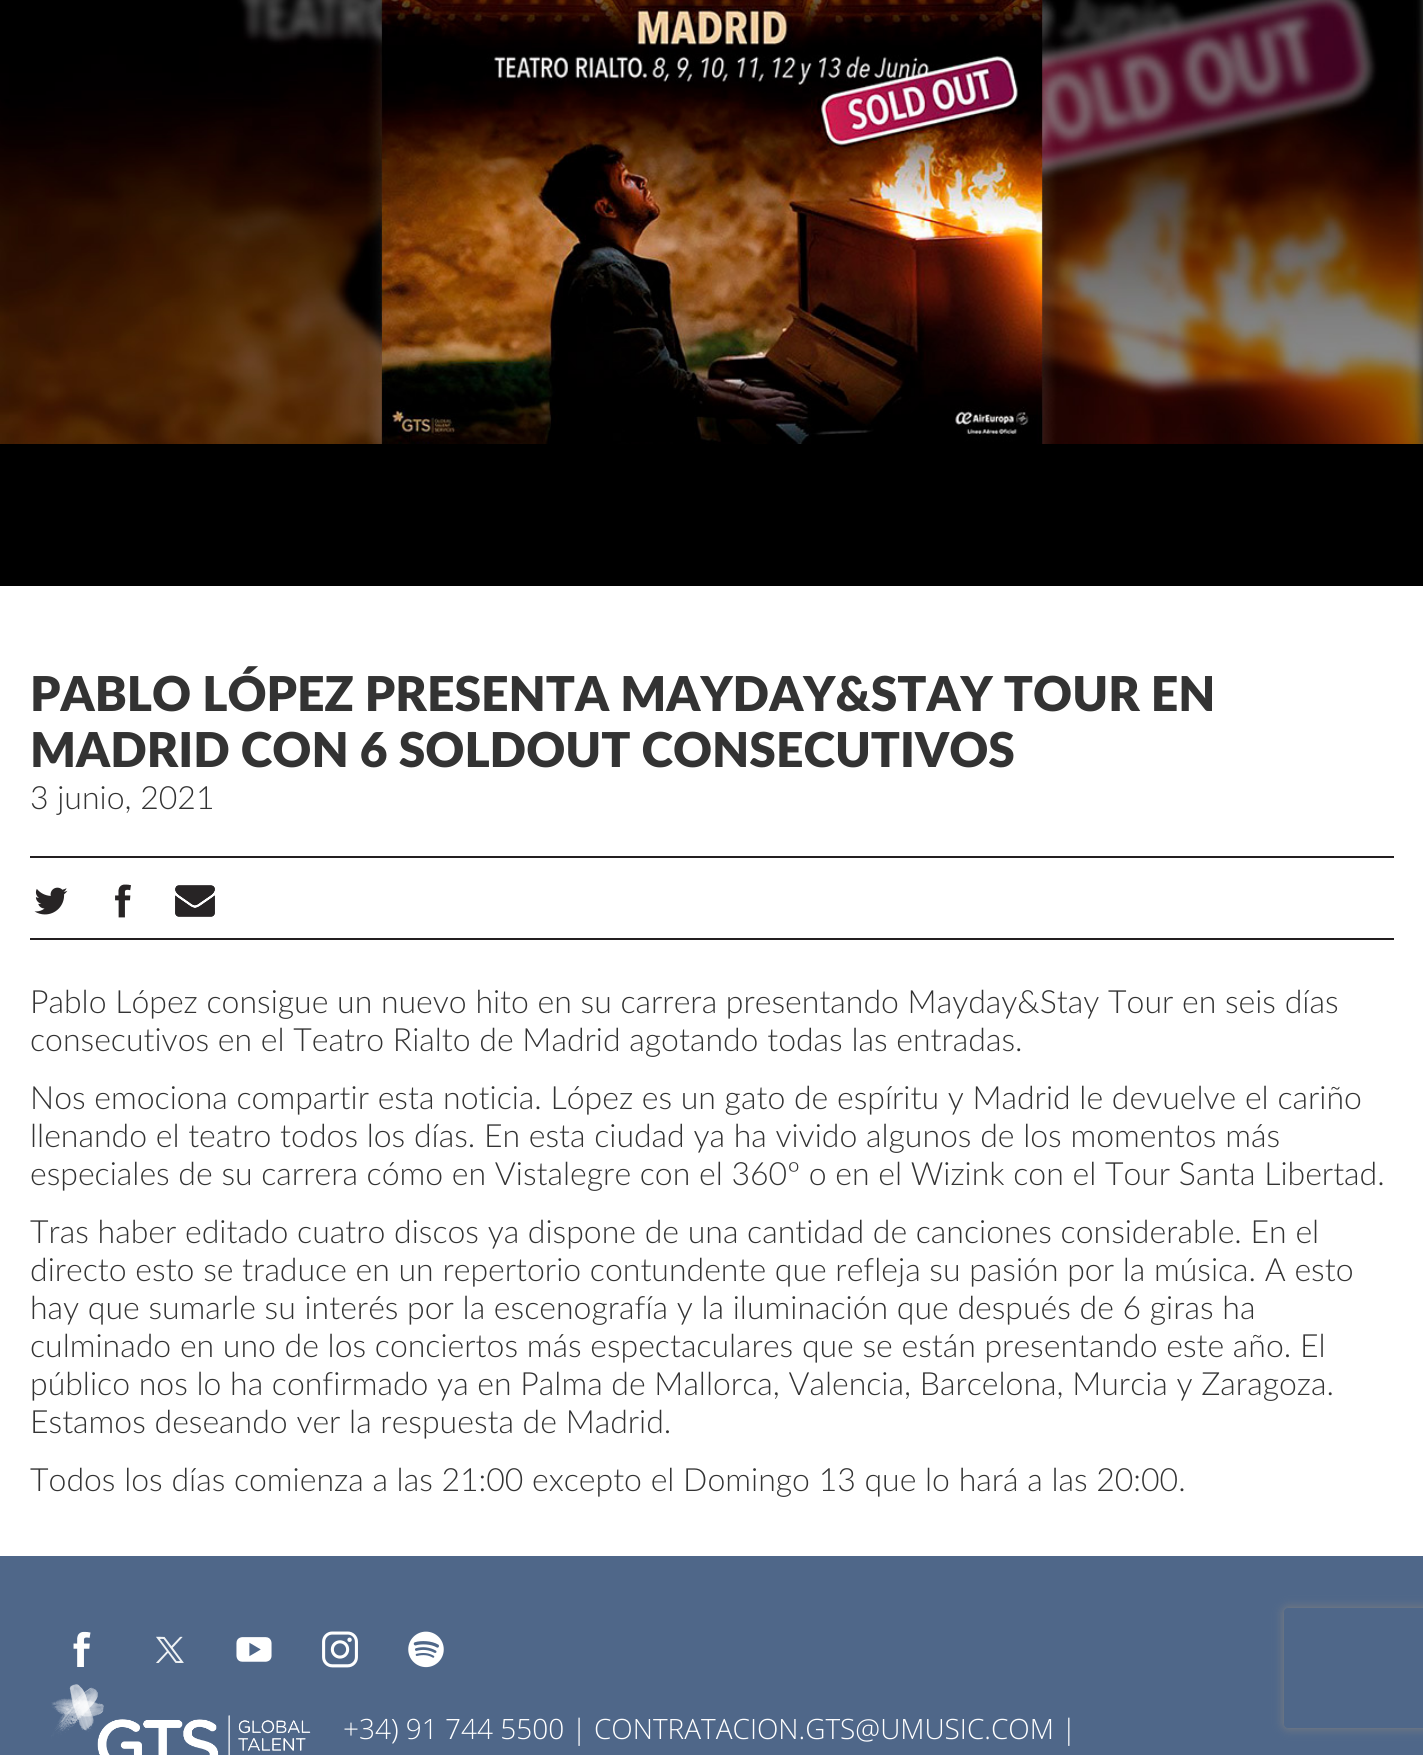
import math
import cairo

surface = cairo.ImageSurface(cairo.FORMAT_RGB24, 1423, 1755)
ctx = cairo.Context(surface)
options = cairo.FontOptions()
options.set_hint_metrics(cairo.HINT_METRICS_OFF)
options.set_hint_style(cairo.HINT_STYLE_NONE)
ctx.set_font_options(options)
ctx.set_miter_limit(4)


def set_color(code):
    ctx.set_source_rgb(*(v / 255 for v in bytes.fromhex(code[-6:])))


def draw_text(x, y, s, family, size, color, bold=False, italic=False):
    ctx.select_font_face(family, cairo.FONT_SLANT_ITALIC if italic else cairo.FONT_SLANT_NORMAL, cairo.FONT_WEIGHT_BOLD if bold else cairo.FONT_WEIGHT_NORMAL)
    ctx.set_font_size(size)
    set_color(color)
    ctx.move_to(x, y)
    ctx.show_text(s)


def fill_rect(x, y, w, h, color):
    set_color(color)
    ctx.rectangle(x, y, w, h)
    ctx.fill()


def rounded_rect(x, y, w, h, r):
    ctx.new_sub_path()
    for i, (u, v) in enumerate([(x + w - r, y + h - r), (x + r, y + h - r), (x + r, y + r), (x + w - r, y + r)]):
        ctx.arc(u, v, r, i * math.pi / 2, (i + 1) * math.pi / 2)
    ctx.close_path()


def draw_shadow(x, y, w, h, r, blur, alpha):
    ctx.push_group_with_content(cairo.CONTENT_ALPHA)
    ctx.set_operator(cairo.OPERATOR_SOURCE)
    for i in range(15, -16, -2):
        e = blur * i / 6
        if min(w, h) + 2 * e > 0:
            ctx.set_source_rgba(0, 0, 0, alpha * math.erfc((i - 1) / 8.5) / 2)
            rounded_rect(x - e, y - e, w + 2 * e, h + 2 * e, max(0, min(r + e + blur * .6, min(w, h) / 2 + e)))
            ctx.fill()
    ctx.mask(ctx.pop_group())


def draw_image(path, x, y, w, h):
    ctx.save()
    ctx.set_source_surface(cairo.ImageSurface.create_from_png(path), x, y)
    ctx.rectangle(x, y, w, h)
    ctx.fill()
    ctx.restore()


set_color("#ffffff")
ctx.paint()
fill_rect(0, 444, 1423, 142, "#000000")
draw_image("assets/img1.png", 0, 0, 1423, 444)
draw_text(30, 711, "PABLO LÓPEZ PRESENTA MAYDAY&STAY TOUR EN", "Lato Black", 48, "#333333")
draw_text(30, 767, "MADRID CON 6 SOLDOUT CONSECUTIVOS", "Lato Black", 48, "#333333")
draw_text(30, 809, "3 junio, 2021", "Lato Light", 32, "#333333")
fill_rect(30, 856, 1364, 2, "#231f20")
draw_image("assets/img2.png", 34, 887, 34, 28)
draw_image("assets/img3.png", 115, 884, 16, 34)
draw_image("assets/img4.png", 175, 885, 40, 32)
fill_rect(30, 938, 1364, 2, "#231f20")
draw_text(30, 1013, "Pablo López consigue un nuevo hito en su carrera presentando Mayday&Stay Tour en seis días", "Lato Light", 32, "#333333")
draw_text(30, 1051, "consecutivos en el Teatro Rialto de Madrid agotando todas las entradas.", "Lato Light", 32, "#333333")
draw_text(30, 1109, "Nos emociona compartir esta noticia. López es un gato de espíritu y Madrid le devuelve el cariño", "Lato Light", 32, "#333333")
draw_text(30, 1147, "llenando el teatro todos los días. En esta ciudad ya ha vivido algunos de los momentos más", "Lato Light", 32, "#333333")
draw_text(30, 1185, "especiales de su carrera cómo en Vistalegre con el 360º o en el Wizink con el Tour Santa Libertad.", "Lato Light", 32, "#333333")
draw_text(30, 1243, "Tras haber editado cuatro discos ya dispone de una cantidad de canciones considerable. En el", "Lato Light", 32, "#333333")
draw_text(30, 1281, "directo esto se traduce en un repertorio contundente que refleja su pasión por la música. A esto", "Lato Light", 32, "#333333")
draw_text(30, 1319, "hay que sumarle su interés por la escenografía y la iluminación que después de 6 giras ha", "Lato Light", 32, "#333333")
draw_text(30, 1357, "culminado en uno de los conciertos más espectaculares que se están presentando este año. El", "Lato Light", 32, "#333333")
draw_text(30, 1395, "público nos lo ha confirmado ya en Palma de Mallorca, Valencia, Barcelona, Murcia y Zaragoza.", "Lato Light", 32, "#333333")
draw_text(30, 1433, "Estamos deseando ver la respuesta de Madrid.", "Lato Light", 32, "#333333")
draw_text(30, 1491, "Todos los días comienza a las 21:00 excepto el Domingo 13 que lo hará a las 20:00.", "Lato Light", 32, "#333333")
fill_rect(0, 1556, 1423, 199, "#4f6789")
draw_image("assets/img5.png", 73, 1631, 18, 36)
draw_image("assets/img6.png", 156, 1636, 28, 27)
draw_image("assets/img7.png", 236, 1637, 36, 25)
draw_image("assets/img8.png", 322, 1631, 36, 37)
draw_image("assets/img9.png", 408, 1631, 36, 37)
draw_image("assets/img10.png", 51, 1684, 260, 71)
draw_text(343, 1739, "+34) 91 744 5500 | CONTRATACION.GTS@UMUSIC.COM |", "Open Sans Light", 28, "#ffffff")
ctx.save()
ctx.set_fill_rule(cairo.FILL_RULE_EVEN_ODD)
ctx.new_path()
ctx.move_to(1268, 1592)
ctx.line_to(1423, 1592)
ctx.line_to(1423, 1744)
ctx.line_to(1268, 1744)
ctx.close_path()
ctx.move_to(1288, 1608)
ctx.line_to(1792, 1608)
ctx.curve_to(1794, 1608, 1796, 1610, 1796, 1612)
ctx.line_to(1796, 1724)
ctx.curve_to(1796, 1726, 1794, 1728, 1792, 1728)
ctx.line_to(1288, 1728)
ctx.curve_to(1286, 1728, 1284, 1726, 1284, 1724)
ctx.line_to(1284, 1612)
ctx.curve_to(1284, 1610, 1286, 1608, 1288, 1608)
ctx.close_path()
ctx.clip()
set_color("#808080")
draw_shadow(1284, 1608, 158, 120, 4, 5, 1)
ctx.restore()
surface.write_to_png("output.png")
